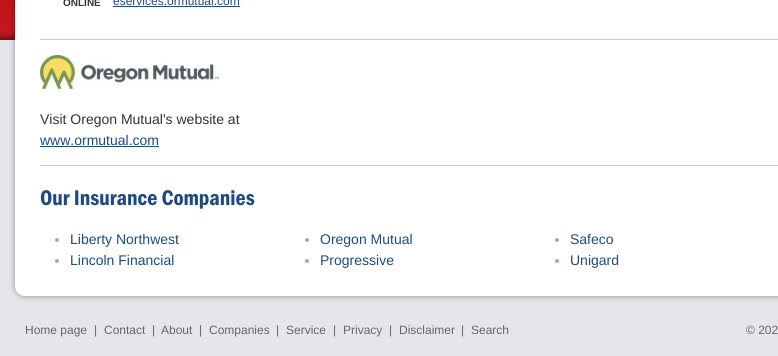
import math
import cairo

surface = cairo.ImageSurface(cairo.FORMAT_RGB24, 778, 356)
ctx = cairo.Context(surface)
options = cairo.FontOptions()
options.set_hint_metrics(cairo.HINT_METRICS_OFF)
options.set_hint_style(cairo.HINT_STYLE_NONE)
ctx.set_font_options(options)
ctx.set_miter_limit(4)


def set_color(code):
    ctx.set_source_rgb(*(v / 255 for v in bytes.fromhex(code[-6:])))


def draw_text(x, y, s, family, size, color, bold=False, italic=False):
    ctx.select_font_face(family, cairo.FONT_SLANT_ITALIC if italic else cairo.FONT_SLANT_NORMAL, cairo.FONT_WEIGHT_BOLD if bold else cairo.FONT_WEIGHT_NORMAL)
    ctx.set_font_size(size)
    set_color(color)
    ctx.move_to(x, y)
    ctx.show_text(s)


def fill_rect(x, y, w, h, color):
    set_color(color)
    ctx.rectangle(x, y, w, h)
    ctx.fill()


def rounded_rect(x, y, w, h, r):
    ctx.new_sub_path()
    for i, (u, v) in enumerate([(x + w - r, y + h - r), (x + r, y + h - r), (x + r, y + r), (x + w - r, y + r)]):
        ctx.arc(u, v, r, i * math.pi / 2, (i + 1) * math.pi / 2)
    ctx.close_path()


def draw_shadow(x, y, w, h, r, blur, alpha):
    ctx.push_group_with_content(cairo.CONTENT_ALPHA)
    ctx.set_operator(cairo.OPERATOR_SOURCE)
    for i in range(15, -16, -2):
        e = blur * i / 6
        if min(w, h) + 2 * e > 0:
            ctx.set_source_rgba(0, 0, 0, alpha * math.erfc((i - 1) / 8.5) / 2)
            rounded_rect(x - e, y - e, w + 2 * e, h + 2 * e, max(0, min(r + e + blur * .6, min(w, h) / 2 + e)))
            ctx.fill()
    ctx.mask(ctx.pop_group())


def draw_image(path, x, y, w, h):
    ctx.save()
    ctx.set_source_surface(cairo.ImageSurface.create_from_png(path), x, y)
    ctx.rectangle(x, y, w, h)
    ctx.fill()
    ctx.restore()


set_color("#e4e6ea")
ctx.paint()
draw_image("assets/img1.png", 0, 0, 15, 40)
set_color("#000000")
draw_shadow(15, -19, 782, 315, 10, 3, 0.4)
set_color("#ffffff")
ctx.new_path()
ctx.move_to(15, -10)
ctx.line_to(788, -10)
ctx.line_to(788, 286)
ctx.curve_to(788, 291.5, 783.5, 296, 778, 296)
ctx.line_to(25, 296)
ctx.curve_to(19.5, 296, 15, 291.5, 15, 286)
ctx.close_path()
ctx.fill()
draw_text(63, 6, "ONLINE", "Liberation Sans", 10, "#333333", bold=True)
draw_text(113, 5, "eservices.ormutual.com", "Liberation Sans", 12, "#1f4a7f")
fill_rect(113, 6, 127, 1, "#1f4a7f")
fill_rect(40, 39, 738, 1, "#cccccc")
draw_image("assets/img2.png", 40, 55, 179, 34)
draw_text(40, 124, "Visit Oregon Mutual's website at", "Liberation Sans", 14, "#333333")
draw_text(40, 145, "www.ormutual.com", "Liberation Sans", 14, "#1f4a7f")
fill_rect(40, 146, 119, 1, "#1f4a7f")
fill_rect(40, 165, 738, 1, "#cccccc")
draw_text(40, 205, "Our Insurance Companies", "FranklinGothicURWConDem", 22, "#1f4a7f")
set_color("#aaaaaa")
ctx.new_path()
ctx.arc(57, 240, 2, 0, 2 * math.pi)
ctx.fill()
draw_text(70, 244, "Liberty Northwest", "Liberation Sans", 14, "#1f4a7f")
set_color("#aaaaaa")
ctx.new_path()
ctx.arc(57, 261, 2, 0, 2 * math.pi)
ctx.fill()
draw_text(70, 265, "Lincoln Financial", "Liberation Sans", 14, "#1f4a7f")
set_color("#aaaaaa")
ctx.new_path()
ctx.arc(307, 240, 2, 0, 2 * math.pi)
ctx.fill()
draw_text(320, 244, "Oregon Mutual", "Liberation Sans", 14, "#1f4a7f")
set_color("#aaaaaa")
ctx.new_path()
ctx.arc(307, 261, 2, 0, 2 * math.pi)
ctx.fill()
draw_text(320, 265, "Progressive", "Liberation Sans", 14, "#1f4a7f")
set_color("#aaaaaa")
ctx.new_path()
ctx.arc(557, 240, 2, 0, 2 * math.pi)
ctx.fill()
draw_text(570, 244, "Safeco", "Liberation Sans", 14, "#1f4a7f")
set_color("#aaaaaa")
ctx.new_path()
ctx.arc(557, 261, 2, 0, 2 * math.pi)
ctx.fill()
draw_text(570, 265, "Unigard", "Liberation Sans", 14, "#1f4a7f")
draw_text(25, 334, "Home page", "Liberation Sans", 12, "#666666")
draw_text(94, 334, "|", "Liberation Sans", 12, "#666666")
draw_text(104, 334, "Contact", "Liberation Sans", 12, "#666666")
draw_text(152, 334, "|", "Liberation Sans", 12, "#666666")
draw_text(161, 334, "About", "Liberation Sans", 12, "#666666")
draw_text(199, 334, "|", "Liberation Sans", 12, "#666666")
draw_text(209, 334, "Companies", "Liberation Sans", 12, "#666666")
draw_text(276, 334, "|", "Liberation Sans", 12, "#666666")
draw_text(286, 334, "Service", "Liberation Sans", 12, "#666666")
draw_text(333, 334, "|", "Liberation Sans", 12, "#666666")
draw_text(343, 334, "Privacy", "Liberation Sans", 12, "#666666")
draw_text(389, 334, "|", "Liberation Sans", 12, "#666666")
draw_text(399, 334, "Disclaimer", "Liberation Sans", 12, "#666666")
draw_text(461, 334, "|", "Liberation Sans", 12, "#666666")
draw_text(471, 334, "Search", "Liberation Sans", 12, "#666666")
draw_text(746, 334, "© 202", "Liberation Sans", 12, "#666666")
surface.write_to_png("output.png")
